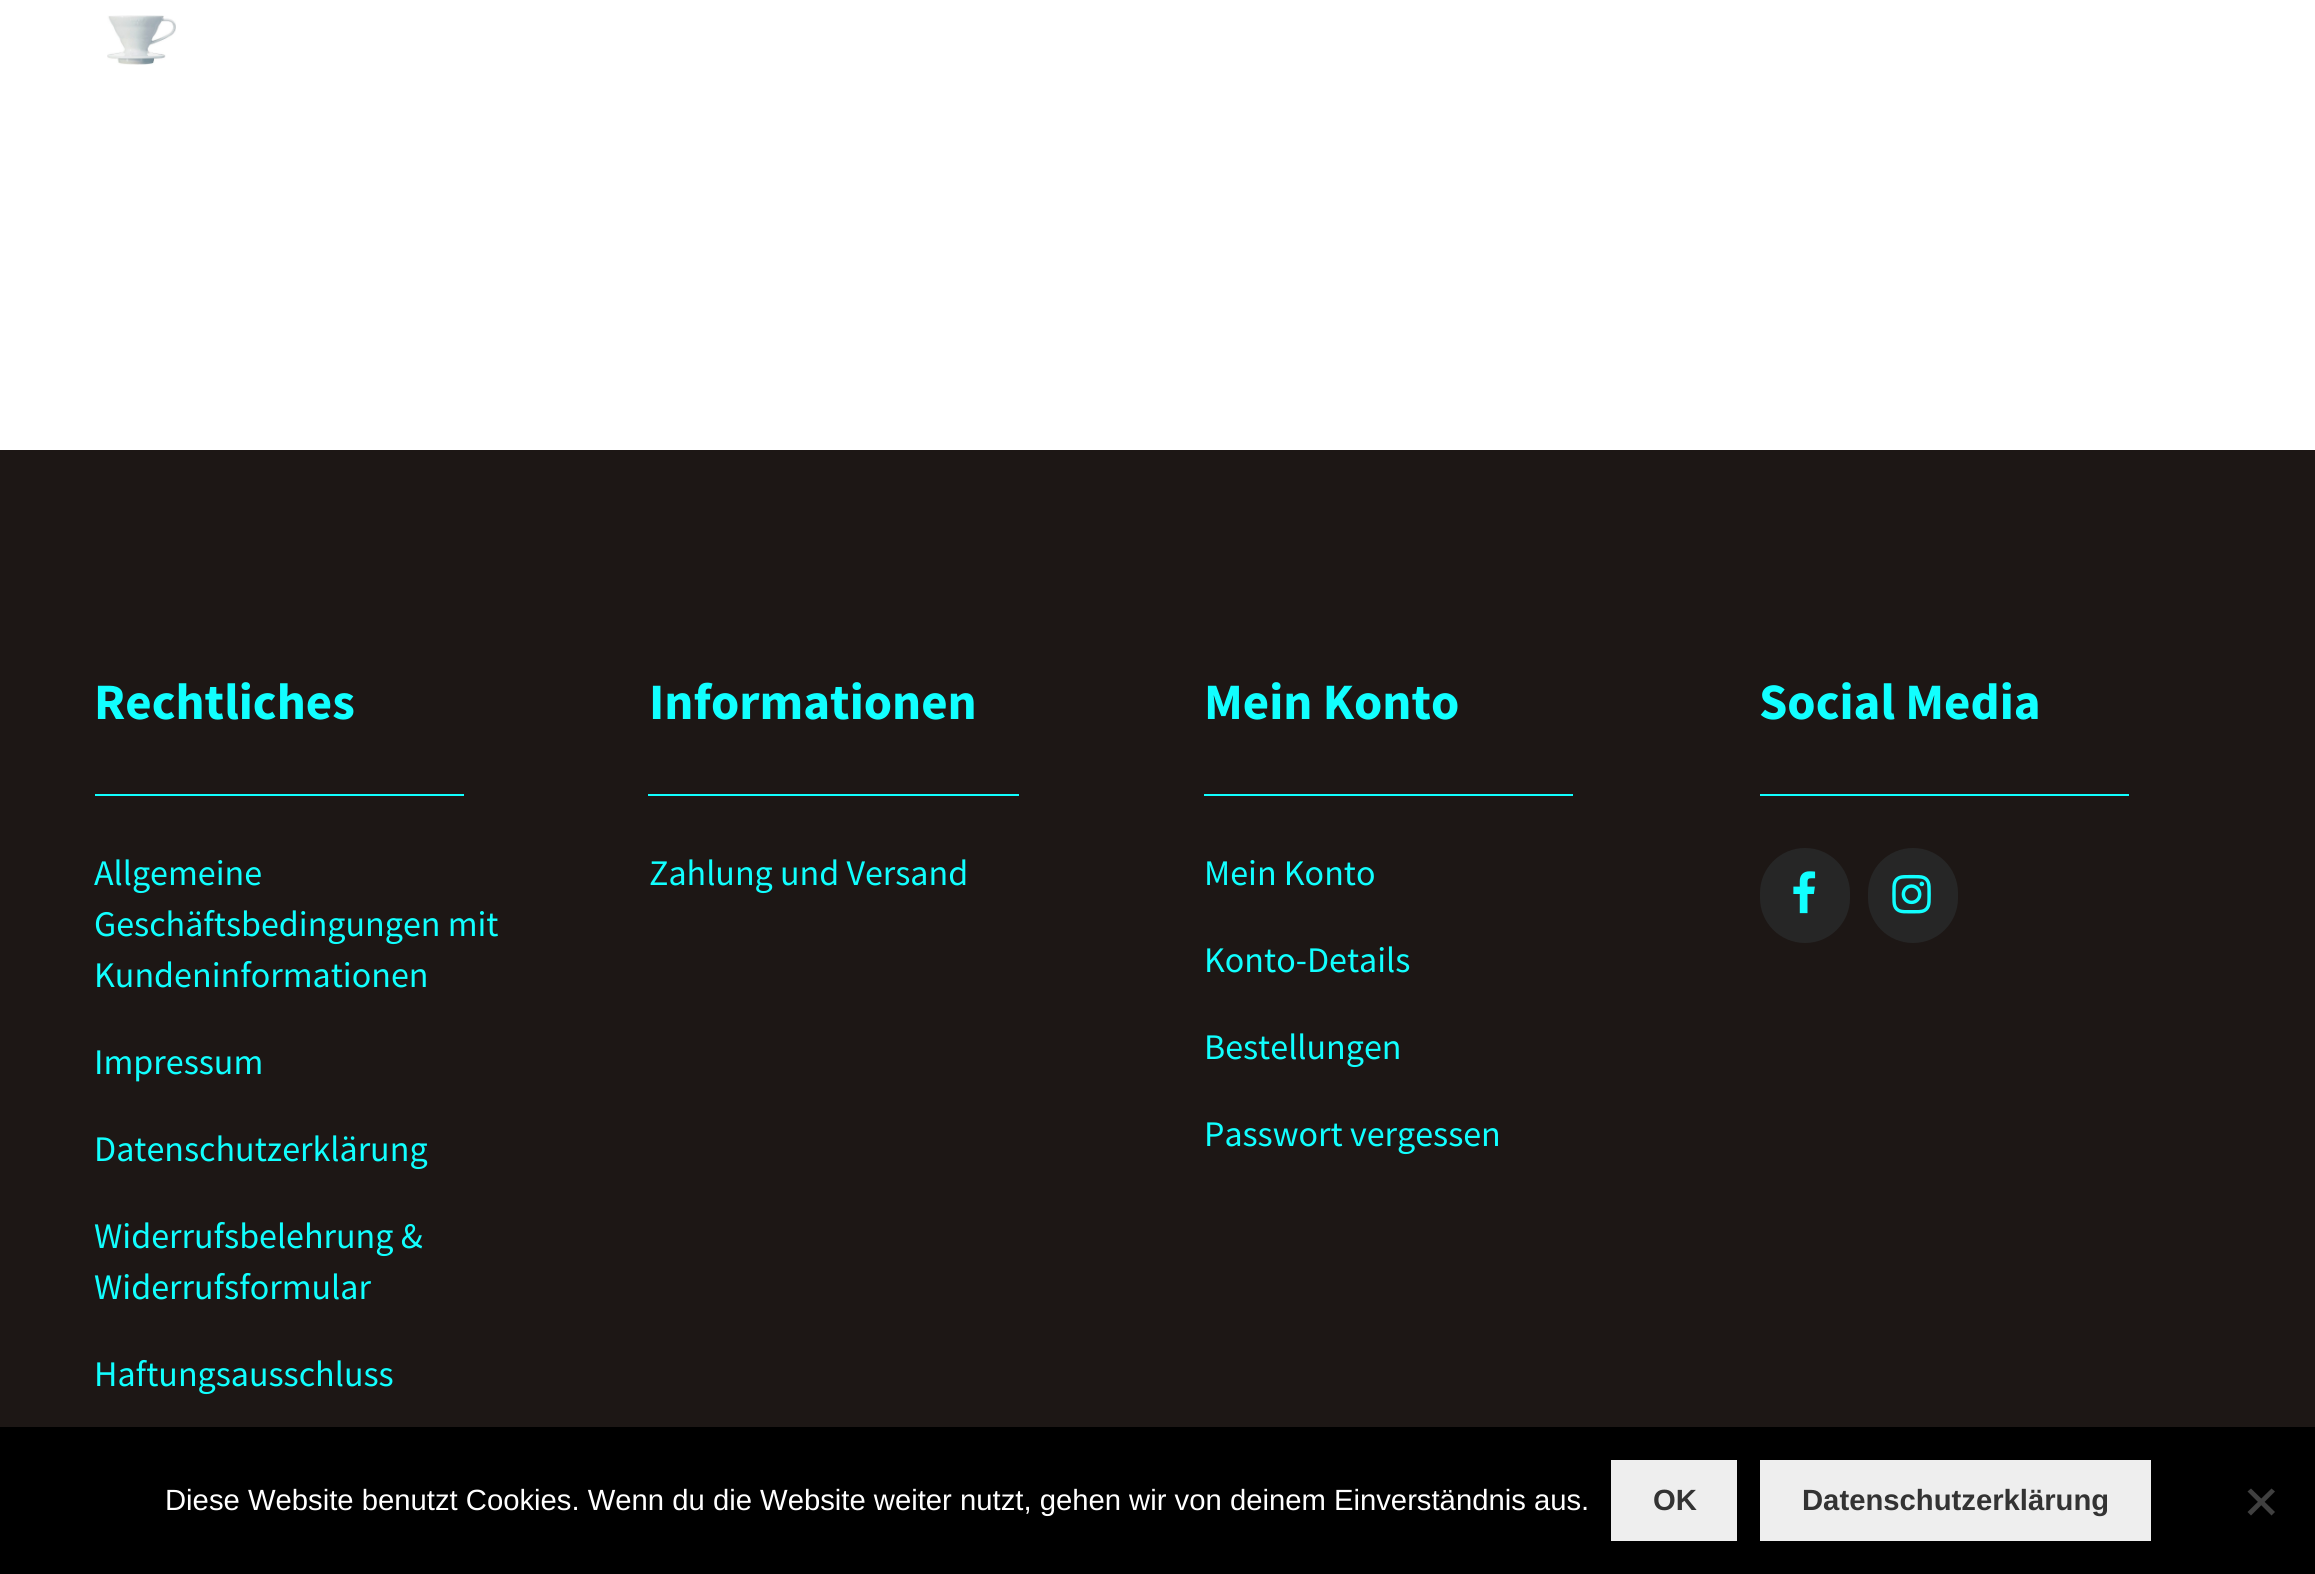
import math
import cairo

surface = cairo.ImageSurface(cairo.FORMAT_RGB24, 2315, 1574)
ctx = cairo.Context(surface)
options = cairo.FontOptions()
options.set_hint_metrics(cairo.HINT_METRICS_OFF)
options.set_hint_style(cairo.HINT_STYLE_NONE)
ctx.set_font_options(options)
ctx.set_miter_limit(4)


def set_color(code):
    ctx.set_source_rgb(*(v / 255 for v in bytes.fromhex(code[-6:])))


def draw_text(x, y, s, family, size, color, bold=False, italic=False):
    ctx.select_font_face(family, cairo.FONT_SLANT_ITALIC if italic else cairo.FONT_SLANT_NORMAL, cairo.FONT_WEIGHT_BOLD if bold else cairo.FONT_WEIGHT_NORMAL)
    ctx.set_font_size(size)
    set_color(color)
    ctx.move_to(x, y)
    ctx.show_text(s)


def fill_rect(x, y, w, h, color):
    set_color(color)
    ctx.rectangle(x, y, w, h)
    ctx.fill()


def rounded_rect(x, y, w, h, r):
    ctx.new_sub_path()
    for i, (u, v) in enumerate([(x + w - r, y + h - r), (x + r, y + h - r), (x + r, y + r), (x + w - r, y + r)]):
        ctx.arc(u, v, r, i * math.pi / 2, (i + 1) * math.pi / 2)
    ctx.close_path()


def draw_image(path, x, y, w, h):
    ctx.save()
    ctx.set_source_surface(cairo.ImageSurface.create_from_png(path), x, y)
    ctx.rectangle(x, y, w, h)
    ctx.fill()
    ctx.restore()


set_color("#ffffff")
ctx.paint()
draw_image("assets/img1.png", 107, 15, 69, 50)
fill_rect(0, 450, 2315, 977, "#1d1715")
fill_rect(95, 794, 369, 2, "#11ffff")
draw_text(94, 719, "Rechtliches", "Source Sans Pro", 51, "#11ffff", bold=True)
draw_text(94, 885, "Allgemeine", "Source Sans Pro", 36, "#11ffff")
draw_text(94, 936, "Geschäftsbedingungen mit", "Source Sans Pro", 36, "#11ffff")
draw_text(94, 987, "Kundeninformationen", "Source Sans Pro", 36, "#11ffff")
draw_text(94, 1074, "Impressum", "Source Sans Pro", 36, "#11ffff")
draw_text(94, 1161, "Datenschutzerklärung", "Source Sans Pro", 36, "#11ffff")
draw_text(94, 1248, "Widerrufsbelehrung &", "Source Sans Pro", 36, "#11ffff")
draw_text(94, 1299, "Widerrufsformular", "Source Sans Pro", 36, "#11ffff")
draw_text(94, 1386, "Haftungsausschluss", "Source Sans Pro", 36, "#11ffff")
fill_rect(648, 794, 371, 2, "#11ffff")
draw_text(649, 719, "Informationen", "Source Sans Pro", 51, "#11ffff", bold=True)
draw_text(649, 885, "Zahlung und Versand", "Source Sans Pro", 36, "#11ffff")
fill_rect(1204, 794, 369, 2, "#11ffff")
draw_text(1204, 719, "Mein Konto", "Source Sans Pro", 51, "#11ffff", bold=True)
draw_text(1204, 885, "Mein Konto", "Source Sans Pro", 36, "#11ffff")
draw_text(1204, 972, "Konto-Details", "Source Sans Pro", 36, "#11ffff")
draw_text(1204, 1059, "Bestellungen", "Source Sans Pro", 36, "#11ffff")
draw_text(1204, 1146, "Passwort vergessen", "Source Sans Pro", 36, "#11ffff")
fill_rect(1760, 794, 369, 2, "#11ffff")
draw_text(1759, 719, "Social Media", "Source Sans Pro", 51, "#11ffff", bold=True)
set_color("#262626")
rounded_rect(1760, 848, 90, 95, 45)
ctx.fill()
draw_image("assets/img2.png", 1793, 871, 23, 43)
rounded_rect(1868, 848, 90, 95, 45)
ctx.fill()
draw_image("assets/img3.png", 1892, 874, 39, 40)
fill_rect(0, 1427, 2315, 147, "#000000")
draw_text(165, 1510, "Diese Website benutzt Cookies. Wenn du die Website weiter nutzt, gehen wir von deinem Einverständnis aus.", "Liberation Sans", 29.25, "#ffffff")
fill_rect(1611, 1460, 126, 81, "#eeeeee")
draw_text(1653, 1510, "OK", "Liberation Sans", 29.25, "#333333", bold=True)
fill_rect(1760, 1460, 391, 81, "#eeeeee")
draw_text(1802, 1510, "Datenschutzerklärung", "Liberation Sans", 29.25, "#333333", bold=True)
set_color("#404040")
ctx.new_path()
ctx.move_to(2271.5, 1488.5)
ctx.line_to(2275, 1491.5)
ctx.line_to(2251, 1515.5)
ctx.line_to(2247.5, 1512)
ctx.close_path()
ctx.fill()
ctx.new_path()
ctx.move_to(2247.5, 1491.5)
ctx.line_to(2251, 1488.5)
ctx.line_to(2275, 1512)
ctx.line_to(2271.5, 1515.5)
ctx.close_path()
ctx.fill()
surface.write_to_png("output.png")
